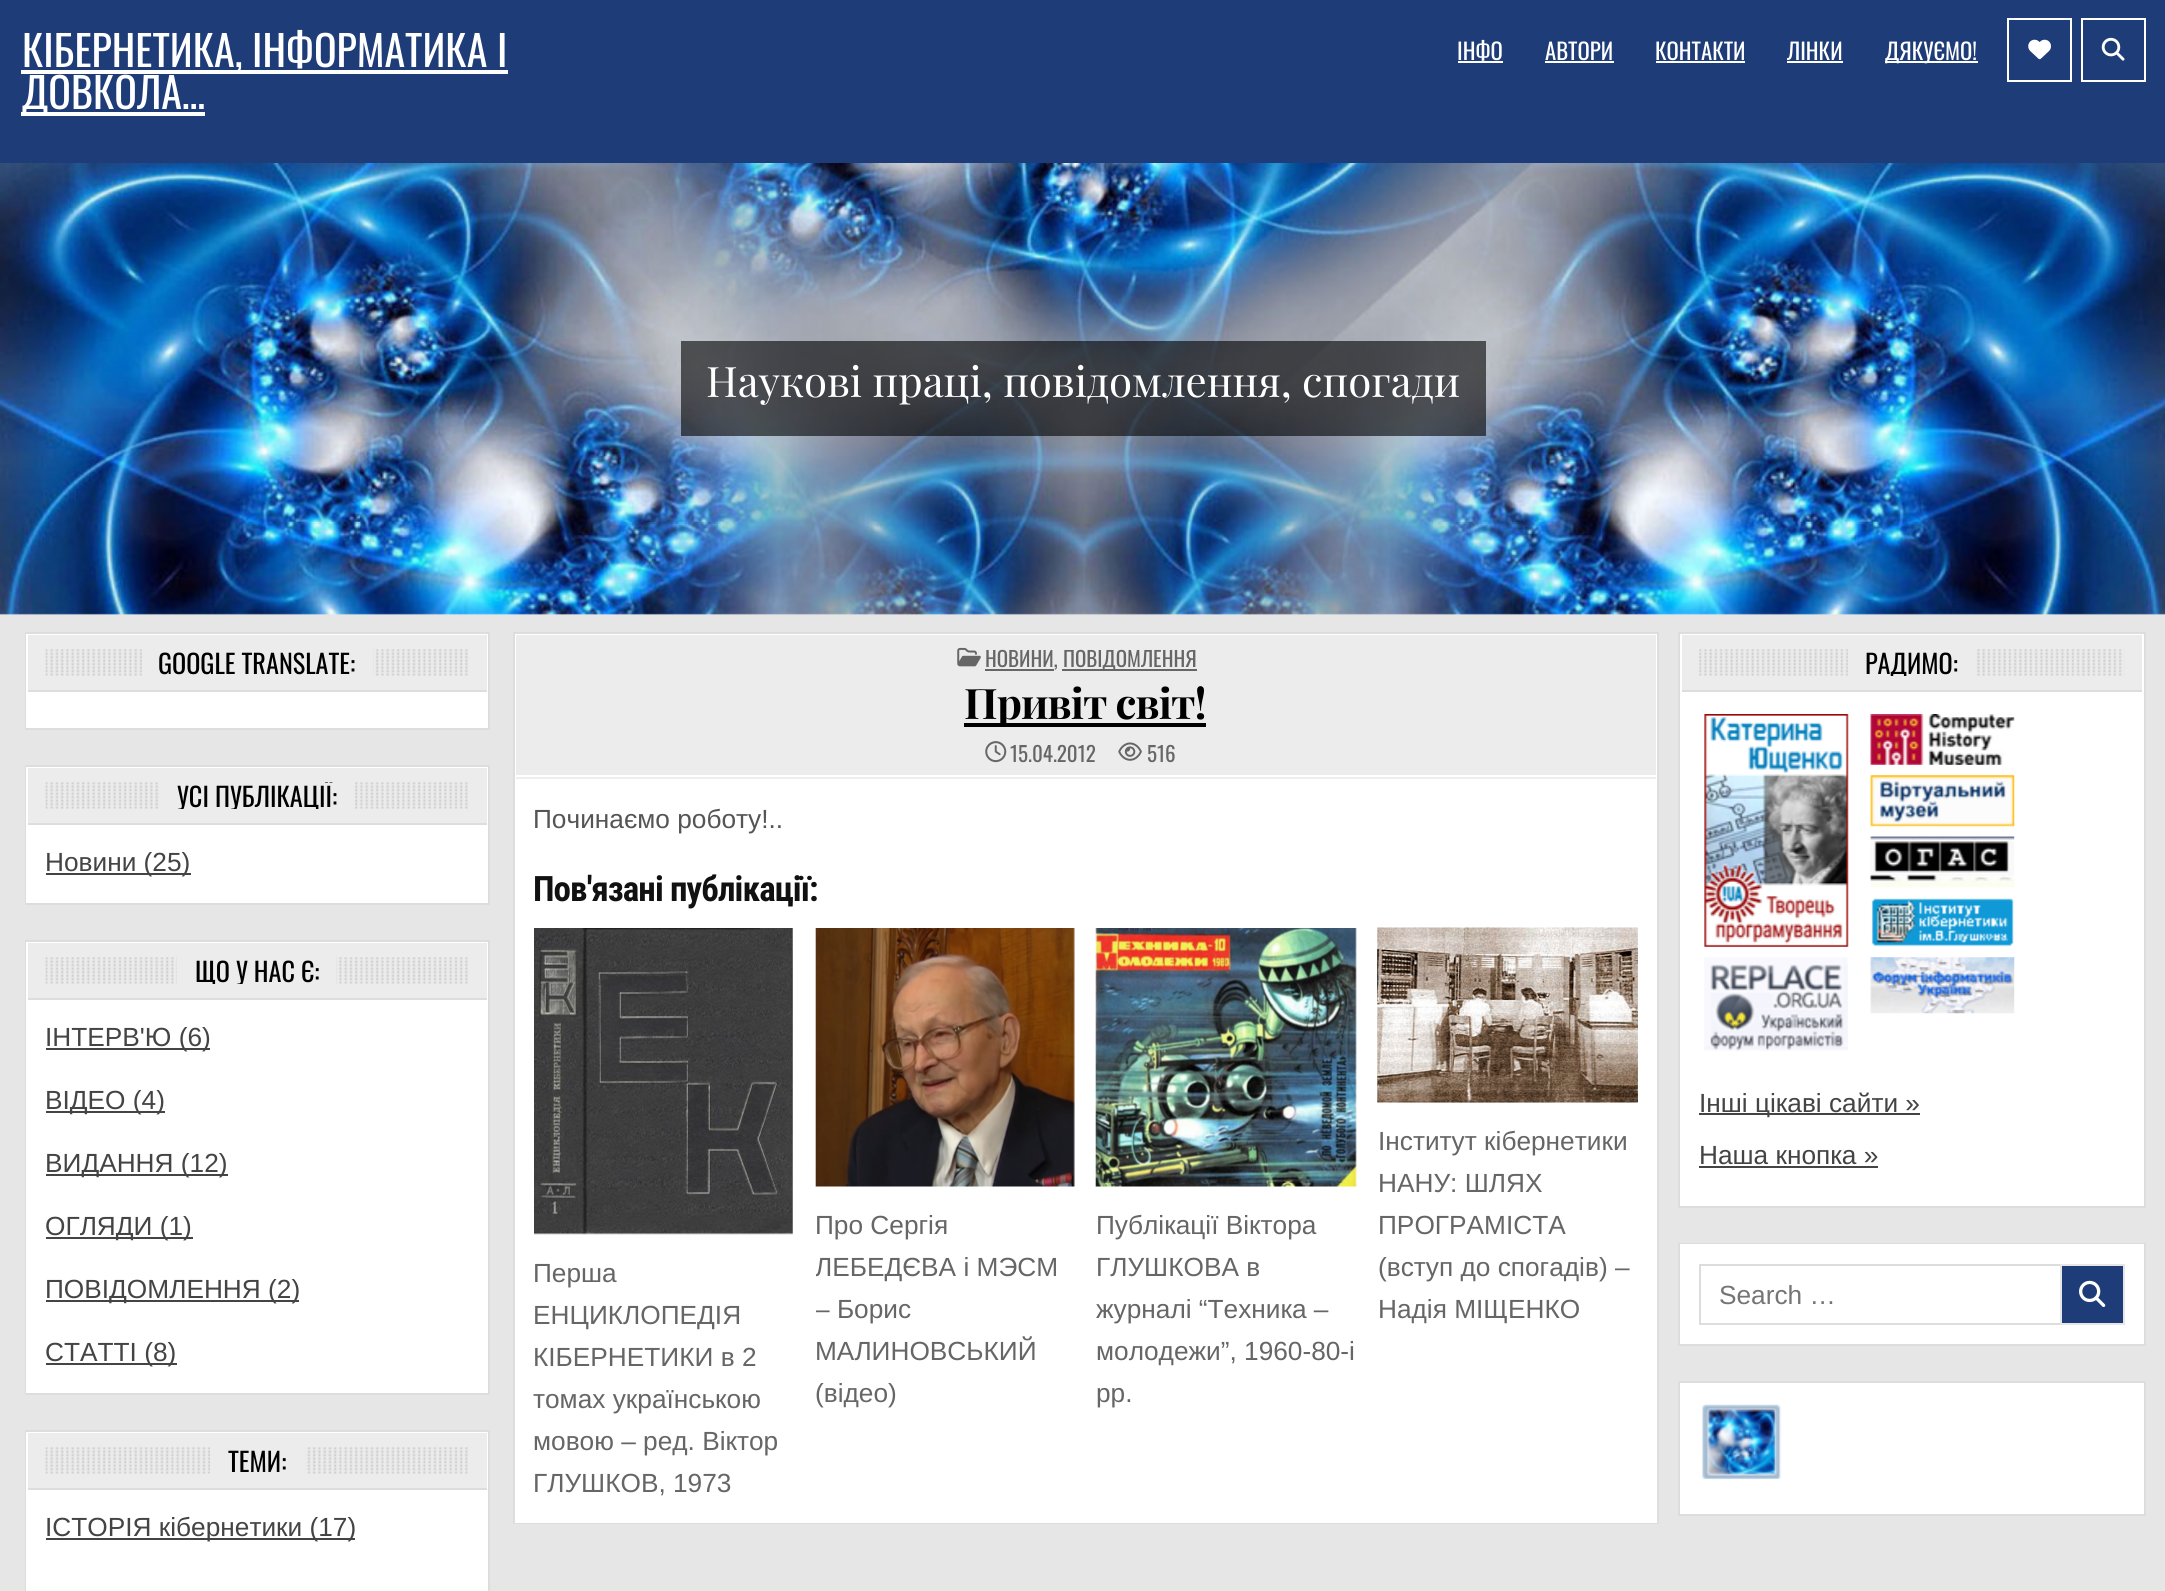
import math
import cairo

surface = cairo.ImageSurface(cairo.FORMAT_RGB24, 2165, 1591)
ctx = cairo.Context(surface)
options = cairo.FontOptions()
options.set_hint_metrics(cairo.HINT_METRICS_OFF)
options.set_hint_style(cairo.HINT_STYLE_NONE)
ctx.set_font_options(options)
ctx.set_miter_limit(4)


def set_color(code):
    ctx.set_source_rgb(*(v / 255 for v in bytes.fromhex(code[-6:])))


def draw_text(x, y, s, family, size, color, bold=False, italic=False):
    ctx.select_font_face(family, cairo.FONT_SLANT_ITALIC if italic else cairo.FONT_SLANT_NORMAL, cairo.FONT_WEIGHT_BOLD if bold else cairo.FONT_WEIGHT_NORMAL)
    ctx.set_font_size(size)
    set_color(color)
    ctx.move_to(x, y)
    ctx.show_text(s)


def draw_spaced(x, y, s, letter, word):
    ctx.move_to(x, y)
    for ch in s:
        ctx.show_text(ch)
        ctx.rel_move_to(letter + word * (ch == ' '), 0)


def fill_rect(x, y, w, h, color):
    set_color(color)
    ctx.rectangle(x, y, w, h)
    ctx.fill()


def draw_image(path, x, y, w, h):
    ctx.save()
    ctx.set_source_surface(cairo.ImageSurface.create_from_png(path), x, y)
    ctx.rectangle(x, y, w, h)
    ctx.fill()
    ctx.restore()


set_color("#e6e6e6")
ctx.paint()
fill_rect(0, 0, 2165, 163, "#1e3c77")
fill_rect(21, 70, 487, 4, "#ffffff")
draw_text(22, 67, "КІБЕРНЕТИКА, ІНФОРМАТИКА І", "Oswald", 42, "#ffffff")
fill_rect(21, 112, 184, 4, "#ffffff")
draw_text(22, 109, "ДОВКОЛА…", "Oswald", 42, "#ffffff")
draw_text(1457, 60, "ІНФО", "Oswald", 22.75, "#ffffff")
fill_rect(1458, 61, 45, 2, "#ffffff")
draw_text(1545, 60, "АВТОРИ", "Oswald", 22.75, "#ffffff")
fill_rect(1545, 61, 69, 2, "#ffffff")
draw_text(1655, 60, "КОНТАКТИ", "Oswald", 22.75, "#ffffff")
fill_rect(1656, 61, 89, 2, "#ffffff")
draw_text(1787, 60, "ЛІНКИ", "Oswald", 22.75, "#ffffff")
fill_rect(1787, 61, 56, 2, "#ffffff")
fill_rect(1885, 61, 93, 2, "#ffffff")
draw_text(1885, 60, "ДЯКУЄМО!", "Oswald", 22.75, "#ffffff")
ctx.rectangle(2008, 19, 63, 62)
ctx.stroke()
draw_image("assets/img1.png", 2028, 39, 23, 21)
ctx.rectangle(2082, 19, 63, 62)
ctx.stroke()
draw_image("assets/img2.png", 2101, 37, 24, 24)
draw_image("assets/img3.png", 0, 163, 2165, 452)
ctx.set_source_rgba(0, 0, 0, 0.6)
ctx.rectangle(681, 341, 805, 95)
ctx.fill()
draw_text(706, 397, "Наукові праці, повідомлення, спогади", "Playfair Display", 42, "#ffffff")
fill_rect(28, 692, 458, 34, "#ffffff")
ctx.rectangle(26, 633, 463, 96)
set_color("#dddddd")
ctx.stroke()
ctx.rectangle(27, 635, 460, 92)
set_color("#ffffff")
ctx.stroke()
fill_rect(28, 635, 459, 55, "#ececec")
fill_rect(28, 690, 459, 2, "#dddddd")
draw_image("assets/img4.png", 45, 649, 423, 27)
fill_rect(142, 649, 231, 27, "#ececec")
draw_text(158, 674, "GOOGLE TRANSLATE:", "Oswald", 26.25, "#000000")
fill_rect(28, 825, 458, 76, "#ffffff")
ctx.rectangle(26, 766, 463, 138)
set_color("#dddddd")
ctx.stroke()
ctx.rectangle(27, 768, 460, 134)
set_color("#ffffff")
ctx.stroke()
fill_rect(28, 768, 459, 55, "#ececec")
fill_rect(28, 823, 459, 2, "#dddddd")
draw_image("assets/img4.png", 45, 782, 423, 27)
fill_rect(160, 782, 195, 27, "#ececec")
ctx.save()
ctx.rectangle(46, 782, 423, 27)
ctx.clip()
draw_text(177, 807, "УСІ ПУБЛІКАЦІЇ:", "Oswald", 26.25, "#000000")
ctx.restore()
fill_rect(46, 873, 145, 2, "#444444")
draw_text(45, 871, "Новини (25)", "Liberation Sans", 26.25, "#444444")
fill_rect(28, 1000, 458, 391, "#ffffff")
ctx.rectangle(26, 941, 463, 453)
set_color("#dddddd")
ctx.stroke()
ctx.rectangle(27, 943, 460, 449)
set_color("#ffffff")
ctx.stroke()
fill_rect(28, 943, 459, 55, "#ececec")
fill_rect(28, 998, 459, 2, "#dddddd")
draw_image("assets/img4.png", 45, 957, 423, 27)
fill_rect(177, 957, 159, 27, "#ececec")
ctx.save()
ctx.rectangle(46, 957, 423, 27)
ctx.clip()
draw_text(195, 982, "ЩО У НАС Є:", "Oswald", 26.25, "#000000")
ctx.restore()
fill_rect(46, 1048, 164, 2, "#444444")
draw_text(45, 1046, "ІНТЕРВ'Ю (6)", "Liberation Sans", 26.25, "#444444")
fill_rect(46, 1111, 119, 2, "#444444")
draw_text(45, 1109, "ВІДЕО (4)", "Liberation Sans", 26.25, "#444444")
fill_rect(46, 1174, 182, 2, "#444444")
draw_text(45, 1172, "ВИДАННЯ (12)", "Liberation Sans", 26.25, "#444444")
fill_rect(46, 1237, 147, 2, "#444444")
draw_text(45, 1235, "ОГЛЯДИ (1)", "Liberation Sans", 26.25, "#444444")
fill_rect(46, 1300, 253, 2, "#444444")
draw_text(45, 1298, "ПОВІДОМЛЕННЯ (2)", "Liberation Sans", 26.25, "#444444")
fill_rect(46, 1363, 131, 2, "#444444")
draw_text(45, 1361, "СТАТТІ (8)", "Liberation Sans", 26.25, "#444444")
fill_rect(28, 1490, 458, 101, "#ffffff")
ctx.rectangle(26, 1431, 463, 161)
set_color("#dddddd")
ctx.stroke()
ctx.rectangle(27, 1433, 460, 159)
set_color("#ffffff")
ctx.stroke()
fill_rect(28, 1433, 459, 55, "#ececec")
fill_rect(28, 1488, 459, 2, "#dddddd")
draw_image("assets/img4.png", 45, 1447, 423, 27)
fill_rect(210, 1447, 95, 27, "#ececec")
draw_text(228, 1472, "ТЕМИ:", "Oswald", 26.25, "#000000")
fill_rect(46, 1538, 309, 2, "#444444")
draw_text(45, 1536, "ІСТОРІЯ кібернетики (17)", "Liberation Sans", 26.25, "#444444")
fill_rect(517, 779, 1138, 742, "#ffffff")
ctx.rectangle(514, 633, 1144, 890)
set_color("#dddddd")
ctx.stroke()
ctx.rectangle(516, 635, 1140, 887)
set_color("#ffffff")
ctx.stroke()
fill_rect(516, 635, 1140, 140, "#ececec")
fill_rect(516, 777, 1140, 2, "#eeeeee")
fill_rect(516, 775, 1140, 2, "#ffffff")
draw_image("assets/img5.png", 957, 647, 24, 20)
fill_rect(985, 669, 69, 2, "#666666")
draw_text(985, 667, "НОВИНИ,", "Oswald", 21, "#666666")
fill_rect(1062, 669, 135, 2, "#666666")
draw_text(1063, 667, "ПОВІДОМЛЕННЯ", "Oswald", 21, "#666666")
fill_rect(964, 723, 242, 4, "#000000")
ctx.select_font_face("Playfair Display", cairo.FONT_SLANT_NORMAL, cairo.FONT_WEIGHT_BOLD)
ctx.set_font_size(42)
draw_spaced(964, 719, "Привіт світ!", -0.9, 0)
draw_image("assets/img6.png", 985, 741, 22, 22)
draw_text(1010, 762, "15.04.2012", "Oswald", 21, "#666666")
draw_image("assets/img7.png", 1118, 742, 24, 19)
draw_text(1147, 762, "516", "Oswald", 21, "#666666")
draw_text(533, 828, "Починаємо роботу!..", "Liberation Sans", 26.25, "#555555")
ctx.select_font_face("Roboto Condensed", cairo.FONT_SLANT_NORMAL, cairo.FONT_WEIGHT_BOLD)
ctx.set_font_size(35)
set_color("#111111")
draw_spaced(533, 901, "Пов'язані публікації:", -0.9, 0)
draw_image("assets/img8.png", 534, 928, 259, 307)
draw_text(533, 1282, "Перша", "Liberation Sans", 26.25, "#666666")
draw_text(533, 1324, "ЕНЦИКЛОПЕДІЯ", "Liberation Sans", 26.25, "#666666")
draw_text(533, 1366, "КІБЕРНЕТИКИ в 2", "Liberation Sans", 26.25, "#666666")
draw_text(533, 1408, "томах українською", "Liberation Sans", 26.25, "#666666")
draw_text(533, 1450, "мовою – ред. Віктор", "Liberation Sans", 26.25, "#666666")
draw_text(533, 1492, "ГЛУШКОВ, 1973", "Liberation Sans", 26.25, "#666666")
draw_image("assets/img9.png", 815, 928, 260, 259)
draw_text(815, 1234, "Про Сергія", "Liberation Sans", 26.25, "#666666")
ctx.save()
ctx.rectangle(816, 928, 259, 486)
ctx.clip()
draw_text(815, 1276, "ЛЕБЕДЄВА і МЭСМ", "Liberation Sans", 26.25, "#666666")
draw_text(815, 1318, "– Борис", "Liberation Sans", 26.25, "#666666")
ctx.restore()
draw_text(815, 1360, "МАЛИНОВСЬКИЙ", "Liberation Sans", 26.25, "#666666")
draw_text(815, 1402, "(відео)", "Liberation Sans", 26.25, "#666666")
draw_image("assets/img10.png", 1095, 928, 262, 259)
draw_text(1096, 1234, "Публікації Віктора", "Liberation Sans", 26.25, "#666666")
draw_text(1096, 1276, "ГЛУШКОВА в", "Liberation Sans", 26.25, "#666666")
draw_text(1096, 1318, "журналі “Техника –", "Liberation Sans", 26.25, "#666666")
draw_text(1096, 1360, "молодежи”, 1960-80-і", "Liberation Sans", 26.25, "#666666")
draw_text(1096, 1402, "рр.", "Liberation Sans", 26.25, "#666666")
draw_image("assets/img11.png", 1377, 927, 261, 176)
draw_text(1378, 1150, "Інститут кібернетики", "Liberation Sans", 26.25, "#666666")
draw_text(1378, 1192, "НАНУ: ШЛЯХ", "Liberation Sans", 26.25, "#666666")
draw_text(1378, 1234, "ПРОГРАМІСТА", "Liberation Sans", 26.25, "#666666")
draw_text(1378, 1276, "(вступ до спогадів) –", "Liberation Sans", 26.25, "#666666")
draw_text(1378, 1318, "Надія МІЩЕНКО", "Liberation Sans", 26.25, "#666666")
set_color("#ffffff")
ctx.rectangle(1679, 633, 466, 574)
ctx.fill_preserve()
set_color("#dddddd")
ctx.stroke()
fill_rect(1682, 635, 460, 55, "#ececec")
fill_rect(1682, 690, 460, 2, "#dddddd")
draw_image("assets/img12.png", 1699, 649, 426, 27)
fill_rect(1848, 649, 127, 27, "#ececec")
ctx.save()
ctx.rectangle(1699, 649, 426, 27)
ctx.clip()
draw_text(1865, 674, "РАДИМО:", "Oswald", 26.25, "#000000")
ctx.restore()
draw_image("assets/img13.png", 1704, 714, 145, 233)
draw_image("assets/img14.png", 1870, 714, 145, 51)
draw_image("assets/img15.png", 1870, 775, 145, 52)
draw_image("assets/img16.png", 1870, 836, 145, 52)
draw_image("assets/img17.png", 1871, 898, 143, 49)
draw_image("assets/img18.png", 1704, 957, 144, 94)
draw_image("assets/img19.png", 1870, 957, 145, 57)
fill_rect(1699, 1113, 221, 2, "#444444")
draw_text(1699, 1112, "Інші цікаві сайти »", "Liberation Sans", 26.25, "#444444")
draw_text(1699, 1164, "Наша кнопка »", "Liberation Sans", 26.25, "#444444")
fill_rect(1699, 1166, 179, 2, "#444444")
fill_rect(1682, 1246, 460, 96, "#ffffff")
ctx.rectangle(1679, 1244, 466, 101)
set_color("#dddddd")
ctx.stroke()
ctx.rectangle(1681, 1245, 462, 98)
set_color("#ffffff")
ctx.stroke()
ctx.rectangle(1700, 1265, 424, 59)
set_color("#dddddd")
ctx.stroke()
draw_text(1719, 1304, "Search …", "Liberation Sans", 26.25, "#757575")
set_color("#1e3c77")
ctx.rectangle(2061, 1265, 63, 59)
ctx.fill_preserve()
set_color("#e6e6e6")
ctx.stroke()
draw_image("assets/img20.png", 2079, 1280, 27, 27)
set_color("#ffffff")
ctx.rectangle(1679, 1382, 466, 133)
ctx.fill_preserve()
set_color("#dddddd")
ctx.stroke()
draw_image("assets/img21.png", 1702, 1404, 80, 76)
surface.write_to_png("output.png")
